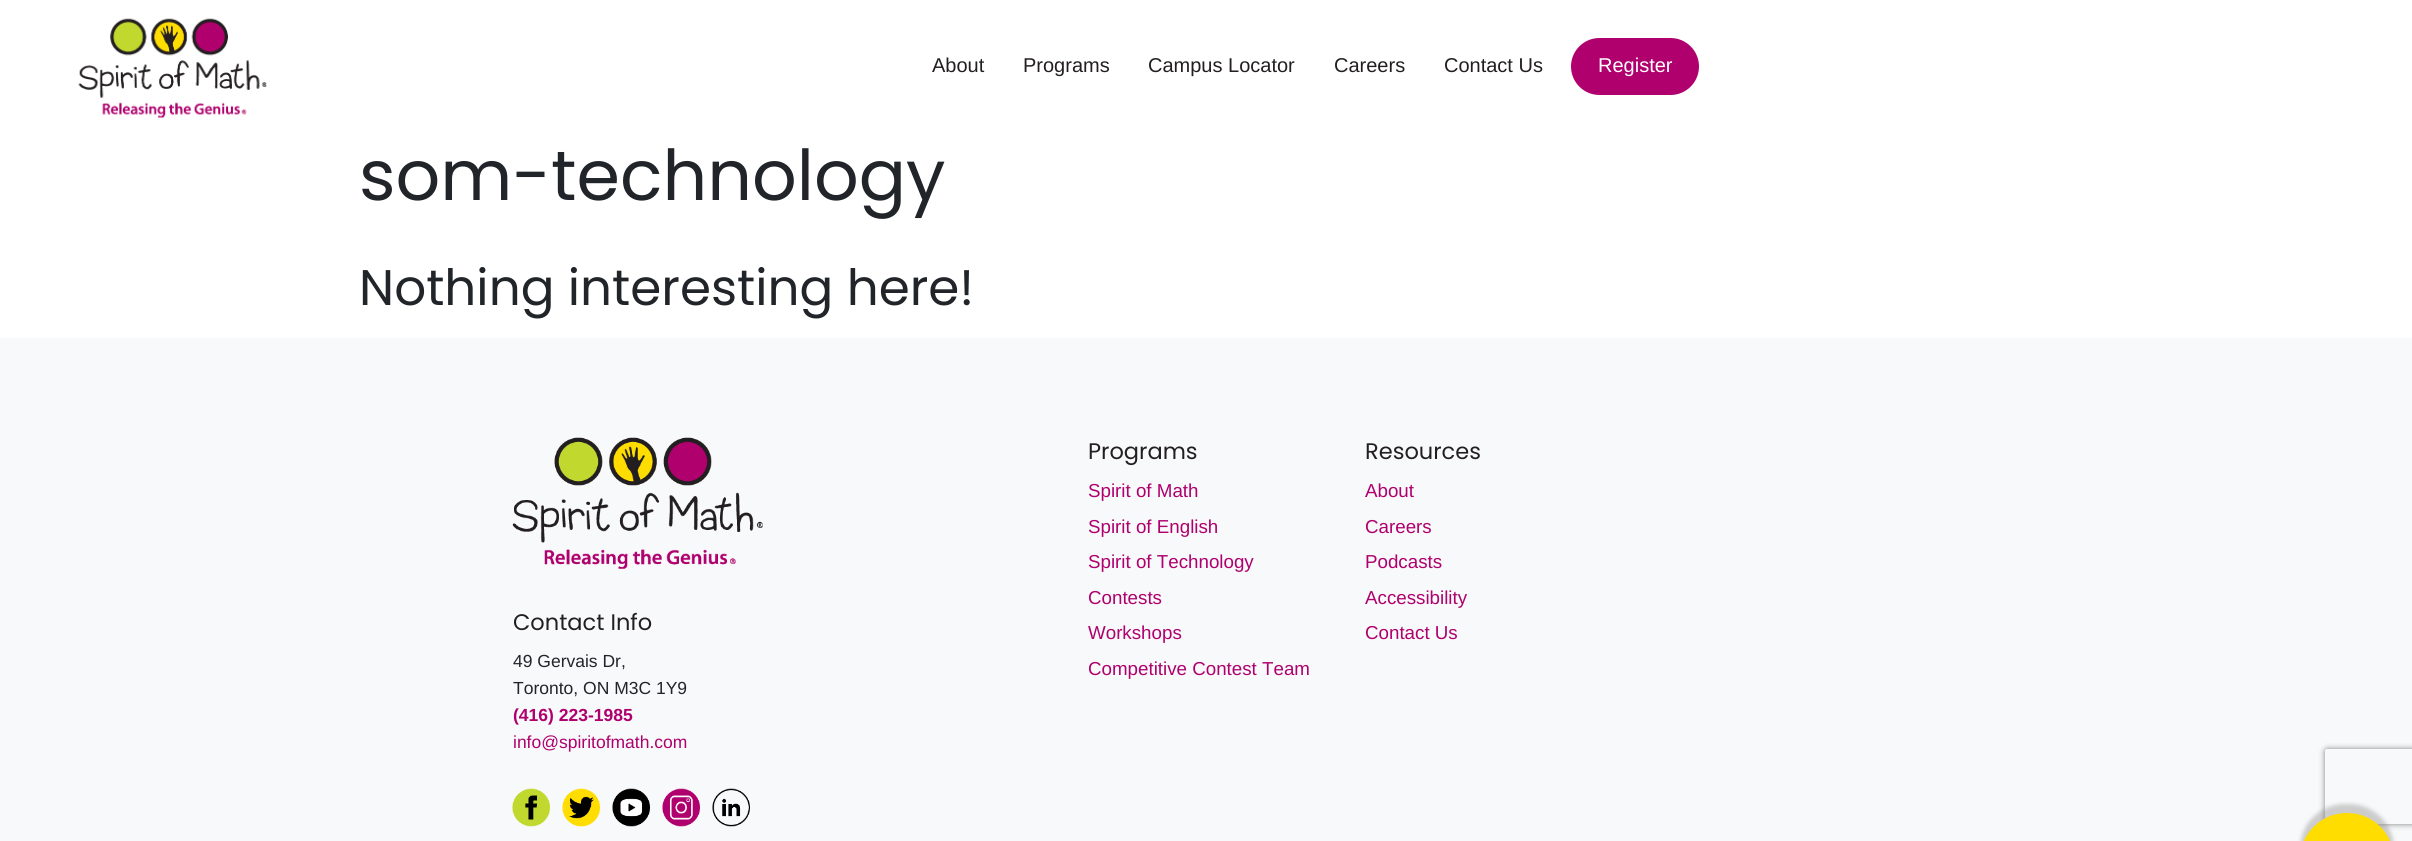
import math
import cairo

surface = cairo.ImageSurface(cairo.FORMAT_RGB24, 2412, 841)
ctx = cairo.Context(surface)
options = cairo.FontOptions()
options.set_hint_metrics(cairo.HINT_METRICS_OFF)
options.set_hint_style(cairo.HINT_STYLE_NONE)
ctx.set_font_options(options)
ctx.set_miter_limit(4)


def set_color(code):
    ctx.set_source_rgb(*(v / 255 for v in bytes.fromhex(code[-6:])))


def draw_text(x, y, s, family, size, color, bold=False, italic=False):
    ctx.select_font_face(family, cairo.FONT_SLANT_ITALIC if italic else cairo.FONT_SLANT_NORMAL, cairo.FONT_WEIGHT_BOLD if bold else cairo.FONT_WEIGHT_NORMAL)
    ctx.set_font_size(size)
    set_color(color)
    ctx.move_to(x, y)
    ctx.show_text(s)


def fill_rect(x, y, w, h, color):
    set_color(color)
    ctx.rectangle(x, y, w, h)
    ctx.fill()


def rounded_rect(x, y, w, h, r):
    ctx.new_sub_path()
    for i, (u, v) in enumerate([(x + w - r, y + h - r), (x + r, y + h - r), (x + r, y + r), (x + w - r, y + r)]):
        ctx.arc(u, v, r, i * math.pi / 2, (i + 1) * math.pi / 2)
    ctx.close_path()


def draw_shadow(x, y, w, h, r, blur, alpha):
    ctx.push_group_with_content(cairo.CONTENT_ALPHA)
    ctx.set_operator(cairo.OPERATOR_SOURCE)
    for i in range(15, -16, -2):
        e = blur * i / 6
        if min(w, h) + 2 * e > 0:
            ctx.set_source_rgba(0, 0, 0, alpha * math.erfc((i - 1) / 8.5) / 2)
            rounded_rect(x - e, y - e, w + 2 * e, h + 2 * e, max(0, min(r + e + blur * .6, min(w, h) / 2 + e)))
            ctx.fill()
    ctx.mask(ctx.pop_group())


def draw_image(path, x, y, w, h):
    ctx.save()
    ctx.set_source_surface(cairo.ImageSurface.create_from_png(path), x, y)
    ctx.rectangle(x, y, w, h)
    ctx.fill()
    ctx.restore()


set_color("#ffffff")
ctx.paint()
draw_image("assets/img1.png", 78, 18, 189, 100)
draw_text(932, 72, "About", "Liberation Sans", 20, "#231f20")
draw_text(1023, 72, "Programs", "Liberation Sans", 20, "#231f20")
draw_text(1148, 72, "Campus Locator", "Liberation Sans", 20, "#231f20")
draw_text(1334, 72, "Careers", "Liberation Sans", 20, "#231f20")
draw_text(1444, 72, "Contact Us", "Liberation Sans", 20, "#231f20")
set_color("#af006e")
rounded_rect(1573, 40, 124, 53, 26.5)
ctx.fill_preserve()
ctx.set_line_width(4)
ctx.stroke()
draw_text(1598, 72, "Register", "Liberation Sans", 20, "#ffffff")
draw_text(359, 200, "som-technology", "Poppins", 70, "#212529")
draw_text(359, 305, "Nothing interesting here!", "Poppins", 50, "#212529")
fill_rect(0, 338, 2412, 503, "#f8f9fa")
draw_image("assets/img2.png", 512, 437, 251, 132)
draw_text(513, 630, "Contact Info", "Poppins", 22.5, "#231f20")
draw_text(513, 667, "49 Gervais Dr,", "Liberation Sans", 17.5, "#212529")
draw_text(513, 694, "Toronto, ON M3C 1Y9", "Liberation Sans", 17.5, "#212529")
draw_text(513, 721, "(416) 223-1985", "Liberation Sans", 17.5, "#af006e", bold=True)
draw_text(513, 748, "info@spiritofmath.com", "Liberation Sans", 17.5, "#af006e")
draw_image("assets/img3.png", 512, 788, 38, 39)
draw_image("assets/img4.png", 562, 788, 38, 39)
draw_image("assets/img5.png", 612, 788, 38, 39)
draw_image("assets/img6.png", 662, 788, 38, 39)
draw_image("assets/img7.png", 712, 788, 38, 39)
draw_text(1088, 459, "Programs", "Poppins", 22.5, "#231f20")
draw_text(1088, 497, "Spirit of Math", "Liberation Sans", 18.75, "#af006e")
draw_text(1088, 533, "Spirit of English", "Liberation Sans", 18.75, "#af006e")
draw_text(1088, 568, "Spirit of Technology", "Liberation Sans", 18.75, "#af006e")
draw_text(1088, 604, "Contests", "Liberation Sans", 18.75, "#af006e")
draw_text(1088, 639, "Workshops", "Liberation Sans", 18.75, "#af006e")
draw_text(1088, 675, "Competitive Contest Team", "Liberation Sans", 18.75, "#af006e")
draw_text(1365, 459, "Resources", "Poppins", 22.5, "#231f20")
draw_text(1365, 497, "About", "Liberation Sans", 18.75, "#af006e")
draw_text(1365, 533, "Careers", "Liberation Sans", 18.75, "#af006e")
draw_text(1365, 568, "Podcasts", "Liberation Sans", 18.75, "#af006e")
draw_text(1365, 604, "Accessibility", "Liberation Sans", 18.75, "#af006e")
draw_text(1365, 639, "Contact Us", "Liberation Sans", 18.75, "#af006e")
set_color("#cccccc")
draw_shadow(2300, 804, 94, 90, 47, 2, 1)
ctx.save()
ctx.set_fill_rule(cairo.FILL_RULE_EVEN_ODD)
ctx.new_path()
ctx.move_to(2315, 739)
ctx.line_to(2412, 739)
ctx.line_to(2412, 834)
ctx.line_to(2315, 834)
ctx.close_path()
ctx.move_to(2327.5, 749)
ctx.line_to(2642.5, 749)
ctx.curve_to(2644, 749, 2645, 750, 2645, 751.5)
ctx.line_to(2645, 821.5)
ctx.curve_to(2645, 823, 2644, 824, 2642.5, 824)
ctx.line_to(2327.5, 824)
ctx.curve_to(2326, 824, 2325, 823, 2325, 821.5)
ctx.line_to(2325, 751.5)
ctx.curve_to(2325, 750, 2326, 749, 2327.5, 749)
ctx.close_path()
ctx.clip()
set_color("#808080")
draw_shadow(2325, 749, 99, 75, 2.5, 3, 1)
ctx.restore()
set_color("#ffdd00")
ctx.new_path()
ctx.move_to(2346.5, 813)
ctx.line_to(2347.5, 813)
ctx.curve_to(2373, 813, 2394, 834, 2394, 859.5)
ctx.line_to(2394, 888)
ctx.line_to(2346.5, 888)
ctx.curve_to(2321, 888, 2300, 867, 2300, 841.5)
ctx.line_to(2300, 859.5)
ctx.curve_to(2300, 834, 2321, 813, 2346.5, 813)
ctx.close_path()
ctx.fill()
surface.write_to_png("output.png")
